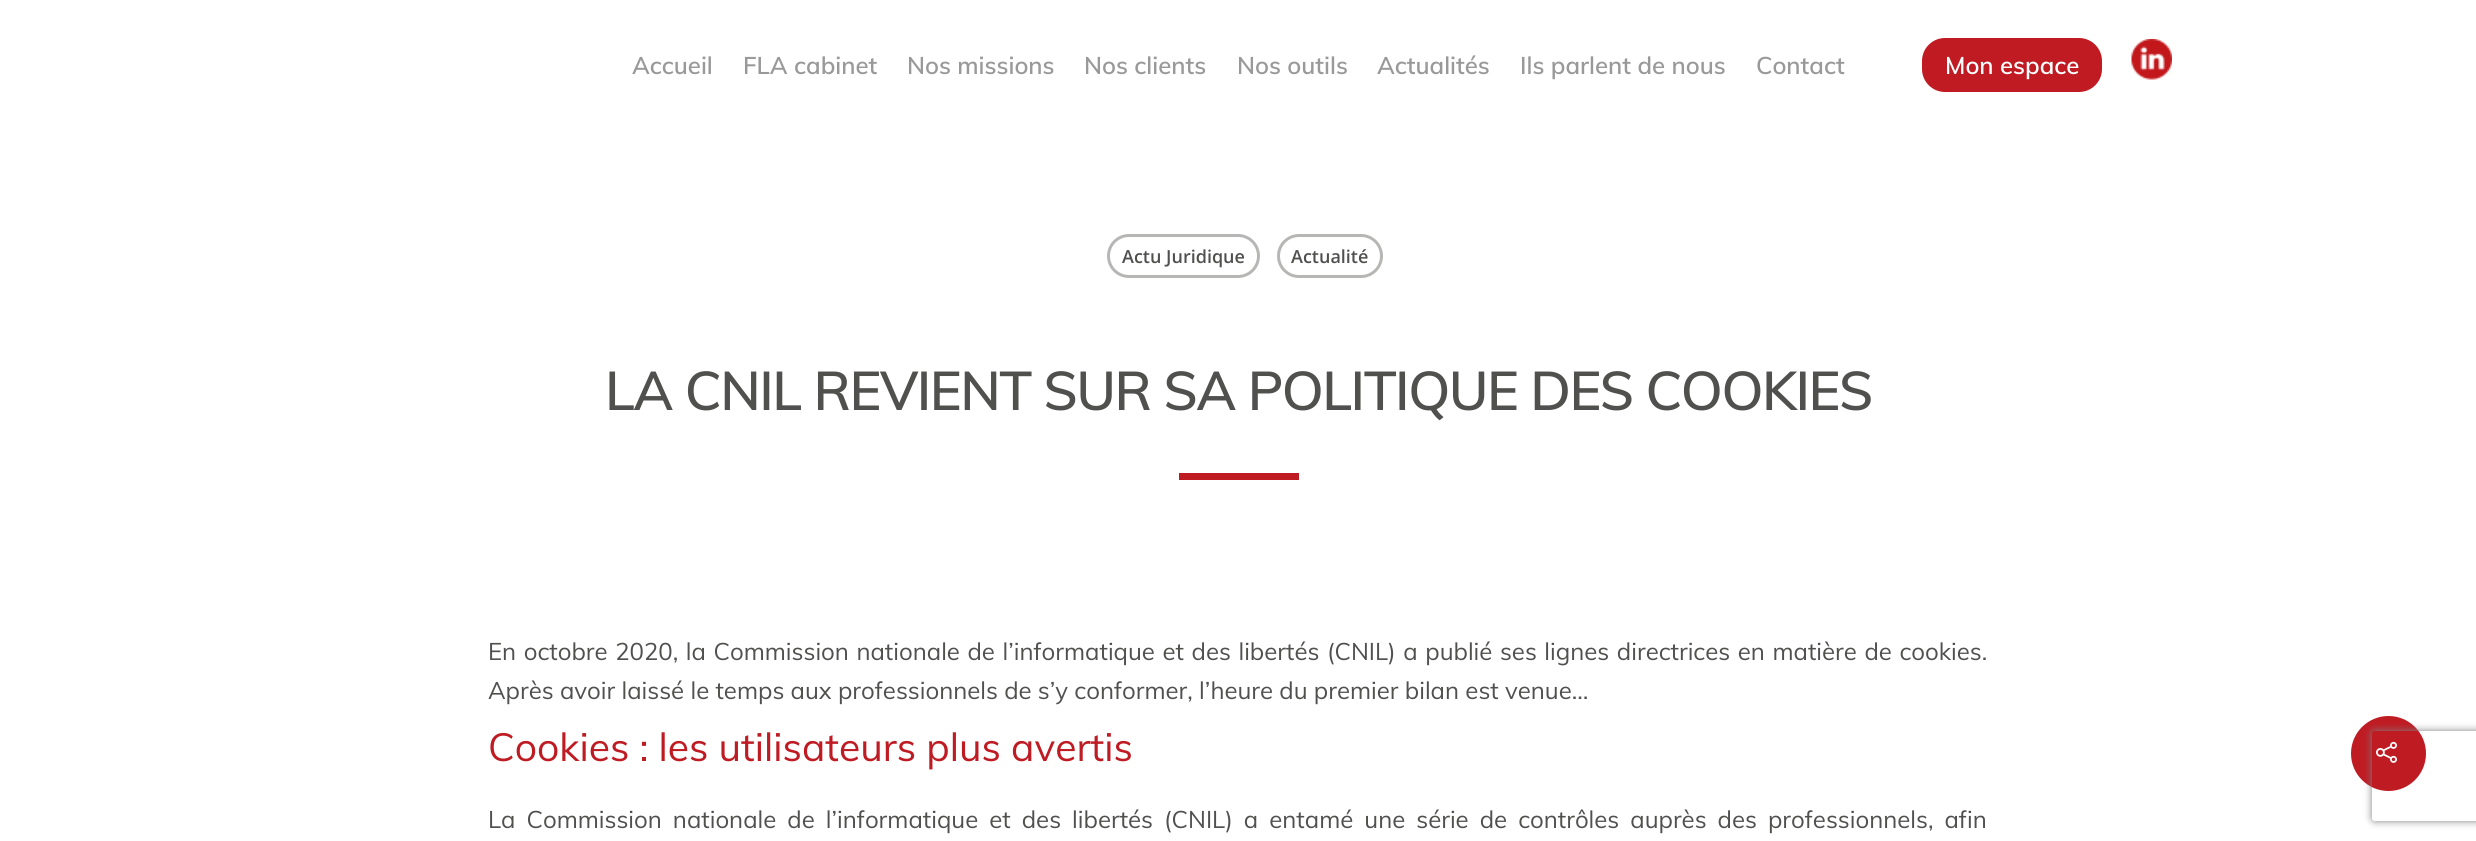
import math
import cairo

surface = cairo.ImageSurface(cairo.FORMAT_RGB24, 2476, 841)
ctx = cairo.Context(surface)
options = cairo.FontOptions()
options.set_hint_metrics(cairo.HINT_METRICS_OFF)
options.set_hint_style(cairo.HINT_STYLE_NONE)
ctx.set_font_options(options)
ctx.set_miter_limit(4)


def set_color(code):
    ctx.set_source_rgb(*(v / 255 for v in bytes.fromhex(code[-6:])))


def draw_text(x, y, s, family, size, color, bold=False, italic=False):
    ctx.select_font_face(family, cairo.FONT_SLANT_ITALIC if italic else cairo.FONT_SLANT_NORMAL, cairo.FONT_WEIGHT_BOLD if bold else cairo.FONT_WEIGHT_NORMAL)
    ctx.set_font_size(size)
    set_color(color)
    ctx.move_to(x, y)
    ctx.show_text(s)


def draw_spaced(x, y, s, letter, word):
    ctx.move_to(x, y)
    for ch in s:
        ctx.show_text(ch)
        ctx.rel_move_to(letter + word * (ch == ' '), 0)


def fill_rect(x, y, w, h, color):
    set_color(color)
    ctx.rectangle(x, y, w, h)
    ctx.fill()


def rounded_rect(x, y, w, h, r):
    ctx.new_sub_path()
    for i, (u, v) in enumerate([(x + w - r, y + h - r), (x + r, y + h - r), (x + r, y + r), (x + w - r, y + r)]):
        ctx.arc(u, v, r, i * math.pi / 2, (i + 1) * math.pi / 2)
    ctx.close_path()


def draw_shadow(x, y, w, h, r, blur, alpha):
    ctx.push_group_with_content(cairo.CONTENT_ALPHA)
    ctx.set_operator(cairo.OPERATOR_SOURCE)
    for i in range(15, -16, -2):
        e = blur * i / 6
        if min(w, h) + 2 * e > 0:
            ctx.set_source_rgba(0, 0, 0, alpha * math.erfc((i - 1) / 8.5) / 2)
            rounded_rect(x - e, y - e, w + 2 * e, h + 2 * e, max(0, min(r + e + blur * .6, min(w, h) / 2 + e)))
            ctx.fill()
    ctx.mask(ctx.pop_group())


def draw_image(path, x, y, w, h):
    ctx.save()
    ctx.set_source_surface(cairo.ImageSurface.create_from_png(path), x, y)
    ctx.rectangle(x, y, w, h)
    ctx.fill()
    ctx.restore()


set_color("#ffffff")
ctx.paint()
draw_text(632, 74, "Accueil", "Muli SemiBold", 24, "#999999")
draw_text(743, 74, "FLA cabinet", "Muli SemiBold", 24, "#999999")
draw_text(907, 74, "Nos missions", "Muli SemiBold", 24, "#999999")
draw_text(1084, 74, "Nos clients", "Muli SemiBold", 24, "#999999")
draw_text(1237, 74, "Nos outils", "Muli SemiBold", 24, "#999999")
draw_text(1377, 74, "Actualités", "Muli SemiBold", 24, "#999999")
draw_text(1520, 74, "Ils parlent de nous", "Muli SemiBold", 24, "#999999")
draw_text(1756, 74, "Contact", "Muli SemiBold", 24, "#999999")
set_color("#c01b23")
rounded_rect(1922, 38, 180, 54, 23)
ctx.fill()
draw_text(1945, 74, "Mon espace", "Muli SemiBold", 24, "#ffffff")
draw_image("assets/img1.png", 2131, 39, 41, 41)
rounded_rect(1108.5, 235.5, 150, 41, 20.5)
set_color("#b6b6b5")
ctx.set_line_width(3)
ctx.stroke()
draw_text(1122, 263, "Actu Juridique", "Open Sans SemiBold", 18, "#50504f")
rounded_rect(1278.5, 235.5, 103, 41, 20.5)
set_color("#b6b6b5")
ctx.stroke()
draw_text(1291, 263, "Actualité", "Open Sans SemiBold", 18, "#50504f")
ctx.select_font_face("Muli SemiBold")
ctx.set_font_size(54)
draw_spaced(605, 410, "LA CNIL REVIENT SUR SA POLITIQUE DES COOKIES", -1.5, 0)
fill_rect(1179, 473, 120, 7, "#bf1b23")
ctx.select_font_face("Muli")
ctx.set_font_size(24)
set_color("#50504f")
draw_spaced(488, 660, "En octobre 2020, la Commission nationale de l’informatique et des libertés (CNIL) a publié ses lignes directrices en matière de cookies.", 0, 1.3)
draw_text(488, 699, "Après avoir laissé le temps aux professionnels de s’y conformer, l’heure du premier bilan est venue…", "Muli", 24, "#50504f")
draw_text(488, 761, "Cookies : les utilisateurs plus avertis", "Muli", 39, "#bf1b23")
ctx.set_font_size(24)
set_color("#50504f")
draw_spaced(488, 828, "La Commission nationale de l’informatique et des libertés (CNIL) a entamé une série de contrôles auprès des professionnels, afin", 0, 4.75)
set_color("#bf1b23")
ctx.new_path()
ctx.arc(2388.5, 753.5, 37.5, 0, 2 * math.pi)
ctx.fill()
draw_image("assets/img2.png", 2376, 741, 21, 22)
ctx.save()
ctx.set_fill_rule(cairo.FILL_RULE_EVEN_ODD)
ctx.new_path()
ctx.move_to(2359, 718)
ctx.line_to(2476, 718)
ctx.line_to(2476, 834)
ctx.line_to(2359, 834)
ctx.close_path()
ctx.move_to(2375, 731)
ctx.line_to(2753, 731)
ctx.curve_to(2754.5, 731, 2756, 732.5, 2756, 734)
ctx.line_to(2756, 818)
ctx.curve_to(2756, 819.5, 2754.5, 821, 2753, 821)
ctx.line_to(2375, 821)
ctx.curve_to(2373.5, 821, 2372, 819.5, 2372, 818)
ctx.line_to(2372, 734)
ctx.curve_to(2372, 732.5, 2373.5, 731, 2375, 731)
ctx.close_path()
ctx.clip()
set_color("#808080")
draw_shadow(2372, 731, 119, 90, 3, 4, 1)
ctx.restore()
surface.write_to_png("output.png")
